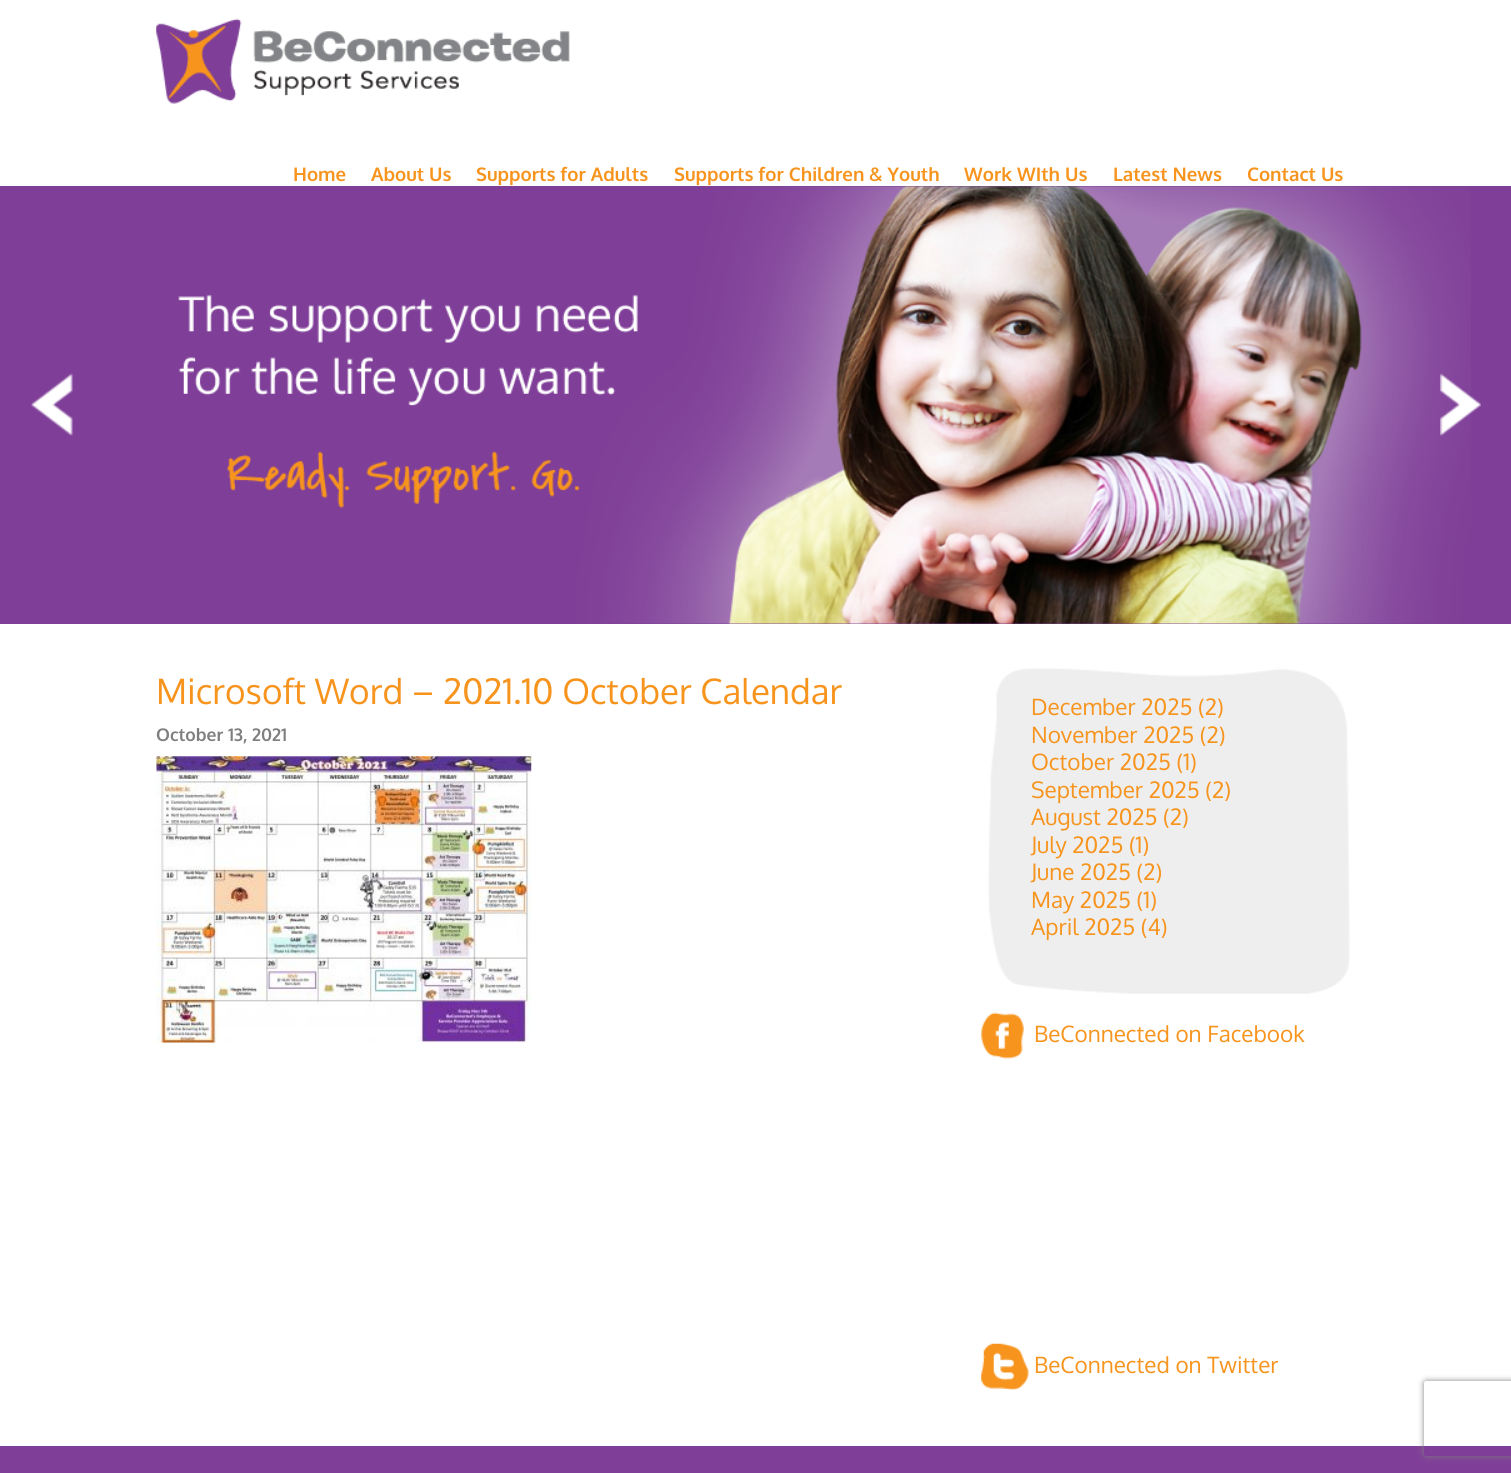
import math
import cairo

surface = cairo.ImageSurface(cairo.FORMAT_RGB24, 1511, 1473)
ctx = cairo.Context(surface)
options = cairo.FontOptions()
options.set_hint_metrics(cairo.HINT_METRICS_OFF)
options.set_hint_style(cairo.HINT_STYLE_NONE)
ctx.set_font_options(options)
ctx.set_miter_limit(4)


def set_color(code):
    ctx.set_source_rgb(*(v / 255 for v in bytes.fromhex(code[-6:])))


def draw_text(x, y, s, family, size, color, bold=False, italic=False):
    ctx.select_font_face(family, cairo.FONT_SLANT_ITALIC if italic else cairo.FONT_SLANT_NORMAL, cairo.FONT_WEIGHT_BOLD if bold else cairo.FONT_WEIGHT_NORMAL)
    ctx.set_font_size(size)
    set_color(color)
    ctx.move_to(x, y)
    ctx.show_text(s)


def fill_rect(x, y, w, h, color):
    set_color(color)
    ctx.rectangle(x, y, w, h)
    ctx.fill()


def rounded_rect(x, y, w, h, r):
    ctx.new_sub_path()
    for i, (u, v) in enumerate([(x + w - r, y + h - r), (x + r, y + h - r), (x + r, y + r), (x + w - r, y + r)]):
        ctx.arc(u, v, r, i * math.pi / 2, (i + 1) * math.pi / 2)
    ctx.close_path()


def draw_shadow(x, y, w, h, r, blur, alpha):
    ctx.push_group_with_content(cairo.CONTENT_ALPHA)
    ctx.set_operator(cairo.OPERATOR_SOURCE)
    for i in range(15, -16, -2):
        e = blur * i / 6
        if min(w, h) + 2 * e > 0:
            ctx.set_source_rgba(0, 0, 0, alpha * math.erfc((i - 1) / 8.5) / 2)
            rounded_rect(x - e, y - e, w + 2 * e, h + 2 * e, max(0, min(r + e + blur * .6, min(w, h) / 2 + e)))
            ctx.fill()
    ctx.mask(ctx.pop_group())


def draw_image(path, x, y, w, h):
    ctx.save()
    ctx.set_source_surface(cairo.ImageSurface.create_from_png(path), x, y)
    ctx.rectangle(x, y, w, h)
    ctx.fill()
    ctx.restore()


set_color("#ffffff")
ctx.paint()
draw_image("assets/img1.png", 156, 18, 414, 86)
draw_text(293, 181, "Home", "Oxygen", 18.75, "#f7941e", bold=True)
draw_text(371, 181, "About Us", "Oxygen", 18.75, "#f7941e", bold=True)
draw_text(476, 181, "Supports for Adults", "Oxygen", 18.75, "#f7941e", bold=True)
draw_text(674, 181, "Supports for Children & Youth", "Oxygen", 18.75, "#f7941e", bold=True)
draw_text(964, 181, "Work WIth Us", "Oxygen", 18.75, "#f7941e", bold=True)
draw_text(1113, 181, "Latest News", "Oxygen", 18.75, "#f7941e", bold=True)
draw_text(1247, 181, "Contact Us", "Oxygen", 18.75, "#f7941e", bold=True)
fill_rect(0, 186, 1511, 438, "#7f3f98")
draw_image("assets/img2.png", 31, 373, 42, 63)
draw_image("assets/img3.png", 178, 186, 1293, 438)
draw_image("assets/img4.png", 1440, 373, 41, 63)
draw_text(156, 704, "Microsoft Word – 2021.10 October Calendar", "Oxygen", 35, "#f7941e")
draw_text(156, 741, "October 13, 2021", "Oxygen", 17.5, "#7f7f7f", bold=True)
draw_image("assets/img5.png", 156, 756, 376, 287)
draw_image("assets/img6.png", 988, 668, 362, 326)
draw_text(1031, 715, "December 2025 (2)", "Oxygen", 22.5, "#f7941e")
draw_text(1031, 743, "November 2025 (2)", "Oxygen", 22.5, "#f7941e")
draw_text(1031, 770, "October 2025 (1)", "Oxygen", 22.5, "#f7941e")
draw_text(1031, 798, "September 2025 (2)", "Oxygen", 22.5, "#f7941e")
draw_text(1031, 825, "August 2025 (2)", "Oxygen", 22.5, "#f7941e")
draw_text(1031, 853, "July 2025 (1)", "Oxygen", 22.5, "#f7941e")
draw_text(1031, 880, "June 2025 (2)", "Oxygen", 22.5, "#f7941e")
draw_text(1031, 908, "May 2025 (1)", "Oxygen", 22.5, "#f7941e")
draw_text(1031, 935, "April 2025 (4)", "Oxygen", 22.5, "#f7941e")
draw_image("assets/img7.png", 981, 1012, 43, 47)
draw_text(1034, 1042, "BeConnected on Facebook", "Oxygen", 22.5, "#f7941e")
draw_image("assets/img8.png", 981, 1343, 48, 47)
draw_text(1034, 1373, "BeConnected on Twitter", "Oxygen", 22.5, "#f7941e")
fill_rect(0, 1446, 1511, 27, "#7f3f98")
ctx.save()
ctx.set_fill_rule(cairo.FILL_RULE_EVEN_ODD)
ctx.new_path()
ctx.move_to(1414, 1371)
ctx.line_to(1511, 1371)
ctx.line_to(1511, 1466)
ctx.line_to(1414, 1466)
ctx.close_path()
ctx.move_to(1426.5, 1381)
ctx.line_to(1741.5, 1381)
ctx.curve_to(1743, 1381, 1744, 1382, 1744, 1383.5)
ctx.line_to(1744, 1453.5)
ctx.curve_to(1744, 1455, 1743, 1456, 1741.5, 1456)
ctx.line_to(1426.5, 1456)
ctx.curve_to(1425, 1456, 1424, 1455, 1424, 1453.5)
ctx.line_to(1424, 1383.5)
ctx.curve_to(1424, 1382, 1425, 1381, 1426.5, 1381)
ctx.close_path()
ctx.clip()
set_color("#808080")
draw_shadow(1424, 1381, 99, 75, 2.5, 3, 1)
ctx.restore()
surface.write_to_png("output.png")
